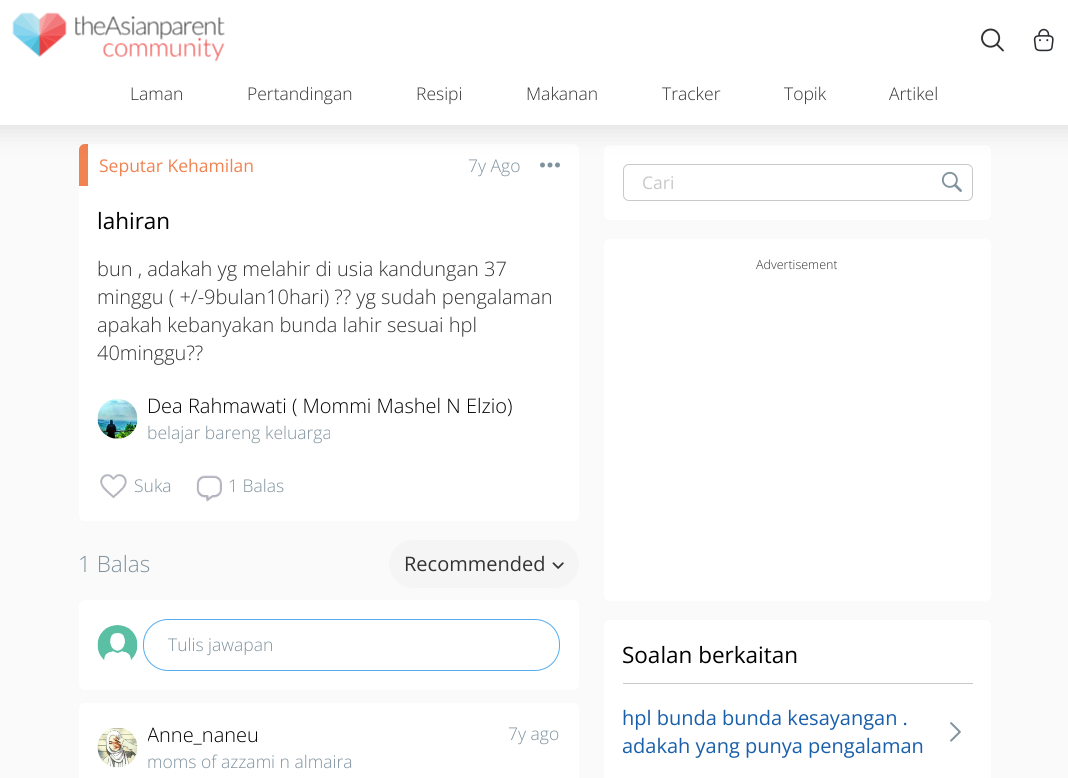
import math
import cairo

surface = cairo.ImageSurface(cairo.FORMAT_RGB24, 1068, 778)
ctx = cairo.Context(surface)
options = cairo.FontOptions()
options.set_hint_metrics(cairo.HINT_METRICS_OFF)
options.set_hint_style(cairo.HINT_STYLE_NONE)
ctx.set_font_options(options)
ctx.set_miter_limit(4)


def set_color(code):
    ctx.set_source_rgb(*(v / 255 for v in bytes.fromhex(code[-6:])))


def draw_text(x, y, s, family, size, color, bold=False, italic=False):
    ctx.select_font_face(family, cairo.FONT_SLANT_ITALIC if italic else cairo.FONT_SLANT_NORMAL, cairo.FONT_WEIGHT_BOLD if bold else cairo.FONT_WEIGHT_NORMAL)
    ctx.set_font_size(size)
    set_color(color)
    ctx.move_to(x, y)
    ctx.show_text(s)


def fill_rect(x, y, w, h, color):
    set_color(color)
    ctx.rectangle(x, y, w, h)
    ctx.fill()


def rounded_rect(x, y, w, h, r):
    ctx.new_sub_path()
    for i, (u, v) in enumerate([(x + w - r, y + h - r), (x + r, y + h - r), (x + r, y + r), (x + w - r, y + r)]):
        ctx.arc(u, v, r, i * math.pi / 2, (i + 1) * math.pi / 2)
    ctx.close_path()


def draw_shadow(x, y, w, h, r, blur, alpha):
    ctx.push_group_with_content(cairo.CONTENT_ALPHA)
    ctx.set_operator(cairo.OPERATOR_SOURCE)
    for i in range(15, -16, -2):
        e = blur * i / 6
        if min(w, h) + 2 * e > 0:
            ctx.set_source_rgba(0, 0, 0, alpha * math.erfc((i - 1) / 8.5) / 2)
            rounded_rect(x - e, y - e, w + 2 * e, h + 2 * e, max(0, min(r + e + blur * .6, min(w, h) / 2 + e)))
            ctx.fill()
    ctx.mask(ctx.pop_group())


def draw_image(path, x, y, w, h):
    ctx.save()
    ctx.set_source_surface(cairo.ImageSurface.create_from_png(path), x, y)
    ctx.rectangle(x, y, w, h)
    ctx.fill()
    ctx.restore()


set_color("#fafafa")
ctx.paint()
set_color("#ffffff")
rounded_rect(79, 144, 500, 377, 6)
ctx.fill()
set_color("#f18251")
ctx.new_path()
ctx.move_to(85, 144)
ctx.line_to(88, 144)
ctx.line_to(88, 186)
ctx.line_to(79, 186)
ctx.line_to(79, 150)
ctx.curve_to(79, 146.5, 81.5, 144, 85, 144)
ctx.close_path()
ctx.fill()
set_color("#7f929e")
ctx.arc(542.5, 165, 2.5, 0, 2 * math.pi)
ctx.fill()
ctx.arc(550, 165, 2.5, 0, 2 * math.pi)
ctx.fill()
ctx.arc(557.5, 165, 2.5, 0, 2 * math.pi)
ctx.fill()
set_color("#ffffff")
rounded_rect(604, 145, 387, 75, 6)
ctx.fill()
rounded_rect(623.5, 164.5, 349, 36, 5.5)
set_color("#c8c8c8")
ctx.set_line_width(1)
ctx.stroke()
set_color("#000000")
draw_shadow(-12, -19, 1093, 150, 0, 12.5, 0.1)
fill_rect(0, 0, 1068, 125, "#ffffff")
draw_image("assets/img1.png", 12, 12, 213, 50)
draw_image("assets/img2.png", 981, 28, 23, 24)
draw_image("assets/img3.png", 1033, 28, 21, 24)
draw_text(130, 100, "Laman", "Open Sans Light", 17.5, "#333333")
draw_text(247, 100, "Pertandingan", "Open Sans Light", 17.5, "#333333")
draw_text(416, 100, "Resipi", "Open Sans Light", 17.5, "#333333")
draw_text(526, 100, "Makanan", "Open Sans Light", 17.5, "#333333")
draw_text(662, 100, "Tracker", "Open Sans Light", 17.5, "#333333")
draw_text(784, 100, "Topik", "Open Sans Light", 17.5, "#333333")
draw_text(889, 100, "Artikel", "Open Sans Light", 17.5, "#333333")
draw_text(99, 172, "Seputar Kehamilan", "Open Sans", 17.5, "#f18251")
draw_text(468, 172, "7y Ago", "Open Sans Light", 17.5, "#7f929e")
draw_text(97, 229, "lahiran", "Open Sans", 22.5, "#000000")
draw_text(97, 276, "bun , adakah yg melahir di usia kandungan 37", "Open Sans Light", 20, "#333333")
draw_text(97, 304, "minggu ( +/-9bulan10hari) ?? yg sudah pengalaman", "Open Sans Light", 20, "#333333")
draw_text(97, 332, "apakah kebanyakan bunda lahir sesuai hpl", "Open Sans Light", 20, "#333333")
draw_text(97, 360, "40minggu??", "Open Sans Light", 20, "#333333")
draw_image("assets/img4.png", 97, 399, 41, 40)
draw_text(147, 413, "Dea Rahmawati ( Mommi Mashel N Elzio)", "Open Sans Light", 20, "#000000")
draw_text(147, 439, "belajar bareng keluarga", "Open Sans Light", 17.5, "#7f929e")
draw_image("assets/img5.png", 100, 474, 27, 24)
draw_text(134, 492, "Suka", "Open Sans Light", 17.5, "#7f929e")
draw_image("assets/img6.png", 196, 475, 26, 27)
draw_text(228, 492, "1 Balas", "Open Sans Light", 17.5, "#7f929e")
draw_text(78, 572, "1 Balas", "Open Sans Light", 22.5, "#7f929e")
set_color("#f5f5f5")
rounded_rect(389, 540, 190, 48, 24)
ctx.fill()
draw_text(404, 571, "Recommended", "Open Sans", 20, "#333333")
draw_image("assets/img7.png", 552, 562, 12, 7)
set_color("#ffffff")
rounded_rect(79, 600, 500, 90, 6)
ctx.fill()
draw_image("assets/img8.png", 97, 625, 41, 36)
rounded_rect(143.5, 619.5, 416, 51, 24.5)
set_color("#54aded")
ctx.stroke()
draw_text(168, 651, "Tulis jawapan", "Open Sans Light", 17.5, "#7f929e")
set_color("#ffffff")
rounded_rect(79, 703, 500, 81, 6)
ctx.fill()
draw_image("assets/img9.png", 97, 727, 41, 41)
ctx.save()
ctx.rectangle(148, 721, 316, 53)
ctx.clip()
draw_text(147, 742, "Anne_naneu", "Open Sans Light", 20, "#000000")
ctx.restore()
draw_text(147, 768, "moms of azzami n almaira", "Open Sans Light", 17.5, "#7f929e")
draw_text(508, 740, "7y ago", "Open Sans Light", 17.5, "#7f929e")
draw_text(642, 189, "Cari", "Open Sans", 17.5, "#c8c8c8")
draw_image("assets/img10.png", 941, 171, 21, 21)
set_color("#ffffff")
rounded_rect(604, 239, 387, 362, 6)
ctx.fill()
draw_text(756, 269, "Advertisement", "Open Sans Light", 12.5, "#333333")
set_color("#ffffff")
rounded_rect(604, 620, 387, 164, 6)
ctx.fill()
fill_rect(623, 683, 350, 1, "#c8c8c8")
draw_text(622, 663, "Soalan berkaitan", "Open Sans", 22.5, "#000000")
draw_text(622, 725, "hpl bunda bunda kesayangan .", "Open Sans", 20, "#195faa")
draw_text(622, 753, "adakah yang punya pengalaman", "Open Sans", 20, "#195faa")
draw_image("assets/img11.png", 950, 722, 11, 20)
surface.write_to_png("output.png")
